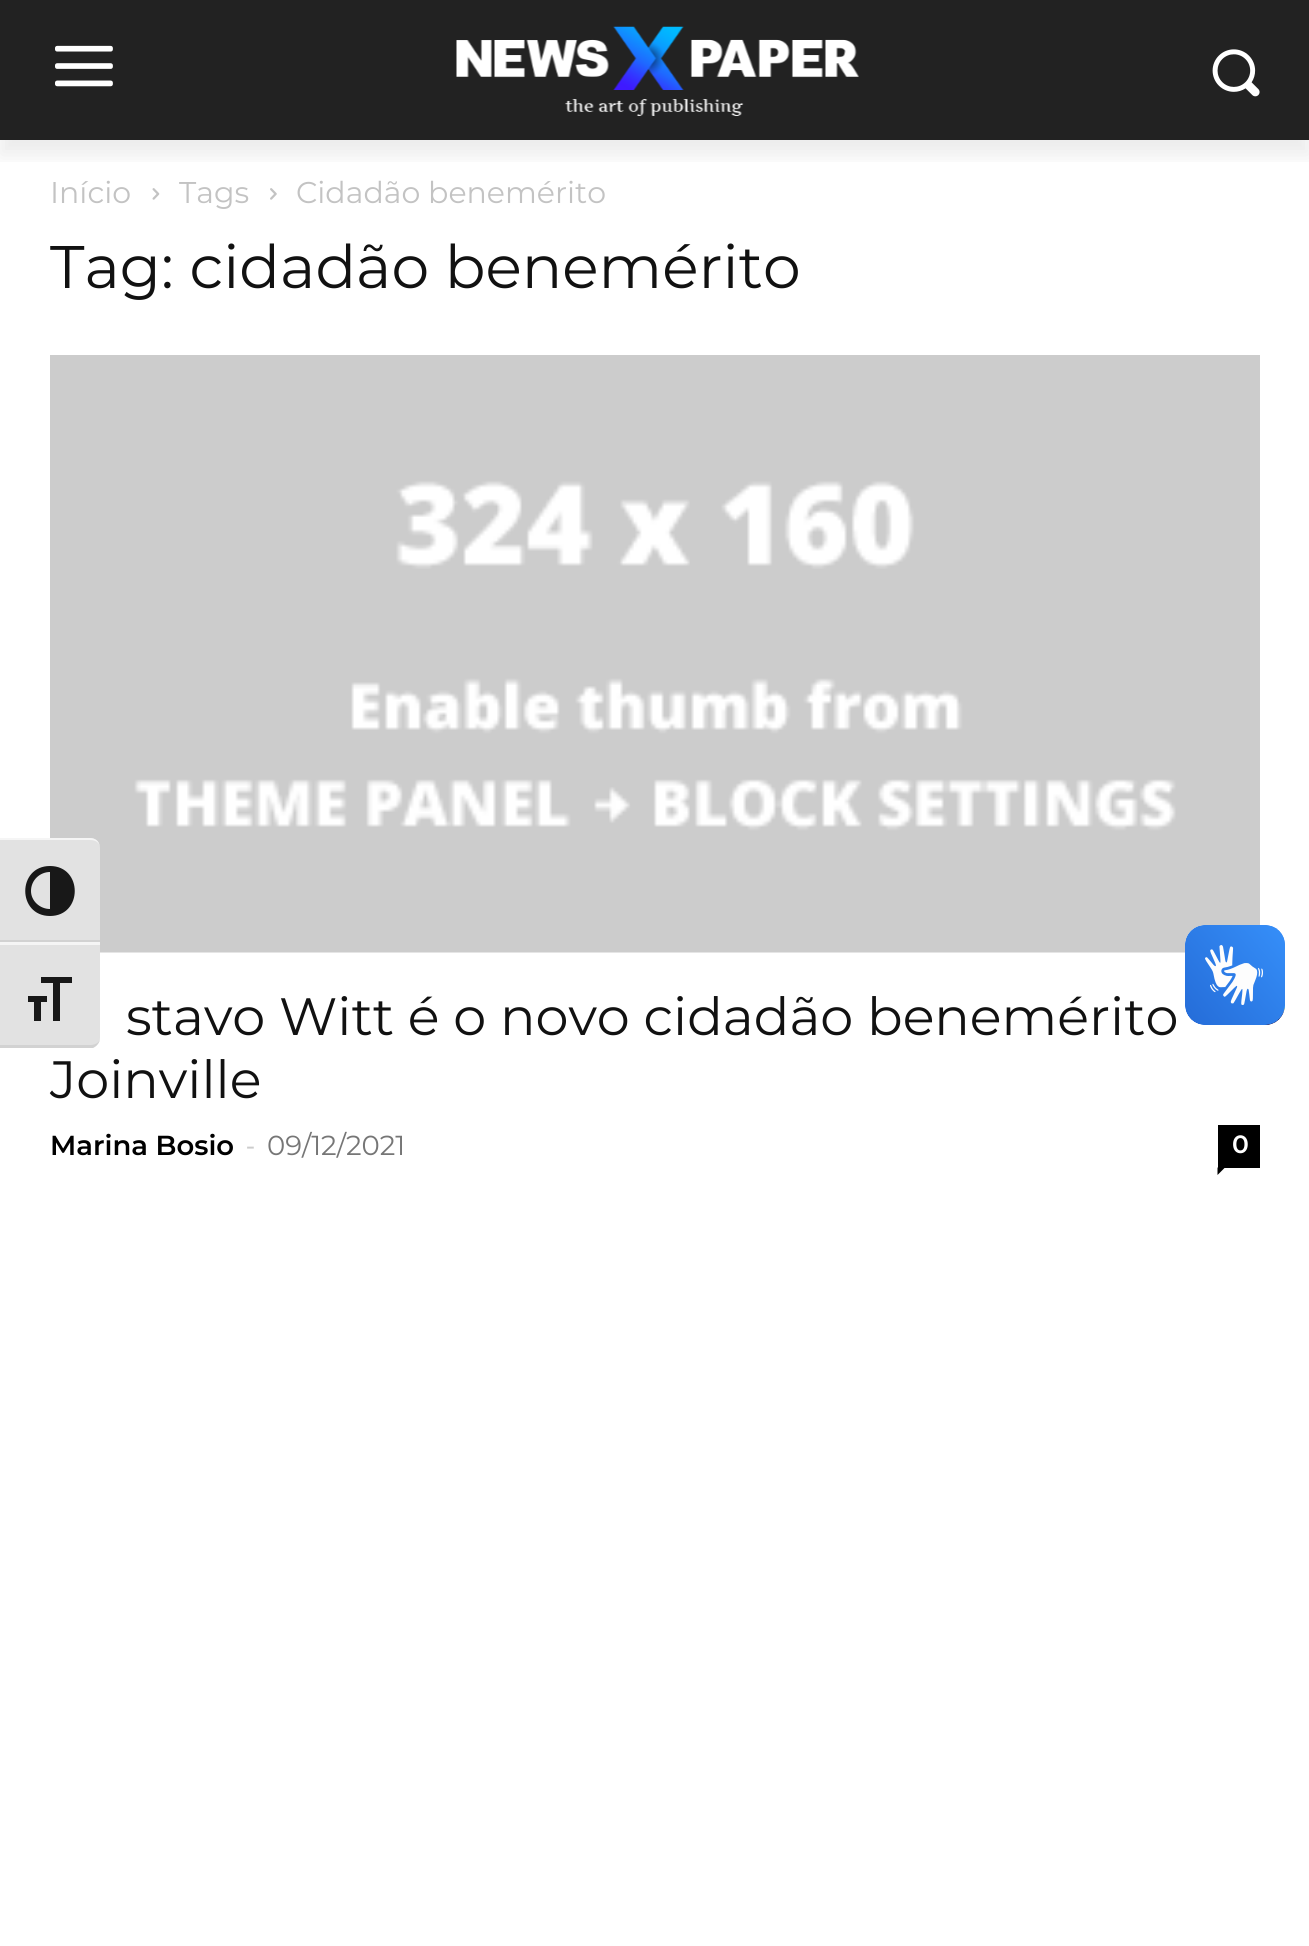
import math
import cairo

surface = cairo.ImageSurface(cairo.FORMAT_RGB24, 1309, 1946)
ctx = cairo.Context(surface)
options = cairo.FontOptions()
options.set_hint_metrics(cairo.HINT_METRICS_OFF)
options.set_hint_style(cairo.HINT_STYLE_NONE)
ctx.set_font_options(options)
ctx.set_miter_limit(4)


def set_color(code):
    ctx.set_source_rgb(*(v / 255 for v in bytes.fromhex(code[-6:])))


def draw_text(x, y, s, family, size, color, bold=False, italic=False):
    ctx.select_font_face(family, cairo.FONT_SLANT_ITALIC if italic else cairo.FONT_SLANT_NORMAL, cairo.FONT_WEIGHT_BOLD if bold else cairo.FONT_WEIGHT_NORMAL)
    ctx.set_font_size(size)
    set_color(color)
    ctx.move_to(x, y)
    ctx.show_text(s)


def fill_rect(x, y, w, h, color):
    set_color(color)
    ctx.rectangle(x, y, w, h)
    ctx.fill()


def rounded_rect(x, y, w, h, r):
    ctx.new_sub_path()
    for i, (u, v) in enumerate([(x + w - r, y + h - r), (x + r, y + h - r), (x + r, y + r), (x + w - r, y + r)]):
        ctx.arc(u, v, r, i * math.pi / 2, (i + 1) * math.pi / 2)
    ctx.close_path()


def draw_shadow(x, y, w, h, r, blur, alpha):
    ctx.push_group_with_content(cairo.CONTENT_ALPHA)
    ctx.set_operator(cairo.OPERATOR_SOURCE)
    for i in range(15, -16, -2):
        e = blur * i / 6
        if min(w, h) + 2 * e > 0:
            ctx.set_source_rgba(0, 0, 0, alpha * math.erfc((i - 1) / 8.5) / 2)
            rounded_rect(x - e, y - e, w + 2 * e, h + 2 * e, max(0, min(r + e + blur * .6, min(w, h) / 2 + e)))
            ctx.fill()
    ctx.mask(ctx.pop_group())


def draw_image(path, x, y, w, h):
    ctx.save()
    ctx.set_source_surface(cairo.ImageSurface.create_from_png(path), x, y)
    ctx.rectangle(x, y, w, h)
    ctx.fill()
    ctx.restore()


set_color("#ffffff")
ctx.paint()
fill_rect(0, 0, 1309, 140, "#222222")
draw_image("assets/img1.png", 55, 45, 58, 42)
draw_image("assets/img2.png", 456, 26, 403, 90)
draw_image("assets/img3.png", 1212, 49, 48, 48)
ctx.save()
ctx.rectangle(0, 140, 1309, 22)
ctx.clip()
set_color("#000000")
draw_shadow(0, 15, 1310, 140, 0, 10, 0.08)
ctx.restore()
draw_text(50, 203, "Início", "Montserrat", 30, "#c3c3c3")
draw_image("assets/img4.png", 152, 188, 8, 12)
draw_text(179, 203, "Tags", "Montserrat", 30, "#c3c3c3")
draw_image("assets/img5.png", 270, 188, 7, 12)
draw_text(296, 203, "Cidadão benemérito", "Montserrat", 30, "#c3c3c3")
draw_text(50, 288, "Tag: cidadão benemérito", "Montserrat", 60, "#111111")
draw_image("assets/img6.png", 50, 355, 1210, 598)
draw_text(126, 1035, "stavo Witt é o novo cidadão benemérito", "Montserrat", 52.5, "#111111")
draw_text(50, 1098, "Joinville", "Montserrat", 52.5, "#111111")
draw_text(50, 1155, "Marina Bosio", "Montserrat SemiBold", 27.5, "#000000")
draw_text(246, 1155, "-", "Open Sans", 27.5, "#cccccc")
draw_text(267, 1155, "09/12/2021", "Montserrat", 27.5, "#767676")
fill_rect(1218, 1125, 42, 43, "#000000")
draw_text(1232, 1153, "0", "Montserrat SemiBold", 25, "#ffffff")
set_color("#000000")
ctx.new_path()
ctx.move_to(1217.5, 1167.5)
ctx.line_to(1225, 1167.5)
ctx.line_to(1217.5, 1175)
ctx.close_path()
ctx.fill()
set_color("#e2e2e2")
ctx.new_path()
ctx.move_to(0, 838)
ctx.line_to(90, 838)
ctx.curve_to(95.5, 838, 100, 842.5, 100, 848)
ctx.line_to(100, 943)
ctx.line_to(0, 943)
ctx.close_path()
ctx.fill()
set_color("#f5f5f5")
ctx.new_path()
ctx.move_to(0, 840)
ctx.line_to(90, 840)
ctx.curve_to(96, 840, 100, 843, 100, 848)
ctx.curve_to(100, 842, 96, 838, 90, 838)
ctx.line_to(0, 838)
ctx.close_path()
ctx.fill()
fill_rect(0, 940, 100, 2, "#d2d2d2")
set_color("#181818")
ctx.new_path()
ctx.move_to(50, 866)
ctx.curve_to(17, 866, 17, 916, 50, 916)
ctx.curve_to(83, 916, 83, 866, 50, 866)
ctx.close_path()
ctx.move_to(31, 891)
ctx.curve_to(31, 880, 40, 872, 50, 872)
ctx.line_to(50, 909)
ctx.curve_to(40, 909, 31, 901, 31, 891)
ctx.close_path()
ctx.fill()
set_color("#e2e2e2")
ctx.new_path()
ctx.move_to(0, 943)
ctx.line_to(100, 943)
ctx.line_to(100, 1038)
ctx.curve_to(100, 1043.5, 95.5, 1048, 90, 1048)
ctx.line_to(0, 1048)
ctx.close_path()
ctx.fill()
fill_rect(0, 942, 100, 3, "#f5f5f5")
set_color("#d2d2d2")
ctx.new_path()
ctx.move_to(93, 1048)
ctx.curve_to(97, 1046, 100, 1042, 100, 1038)
ctx.curve_to(100, 1042, 96, 1045, 90, 1045)
ctx.line_to(0, 1045)
ctx.line_to(0, 1048)
ctx.close_path()
ctx.fill()
set_color("#181818")
ctx.new_path()
ctx.move_to(28, 996)
ctx.line_to(47, 996)
ctx.line_to(47, 1002)
ctx.line_to(41, 1002)
ctx.line_to(41, 1021)
ctx.line_to(34, 1021)
ctx.line_to(34, 1002)
ctx.line_to(28, 1002)
ctx.close_path()
ctx.move_to(72, 983)
ctx.line_to(60, 983)
ctx.line_to(60, 1021)
ctx.line_to(53, 1021)
ctx.line_to(53, 983)
ctx.line_to(41, 983)
ctx.line_to(41, 977)
ctx.line_to(72, 977)
ctx.close_path()
ctx.fill()
draw_image("assets/img7.png", 1185, 925, 100, 100)
draw_image("assets/img8.png", 1185, 925, 100, 100)
surface.write_to_png("output.png")
